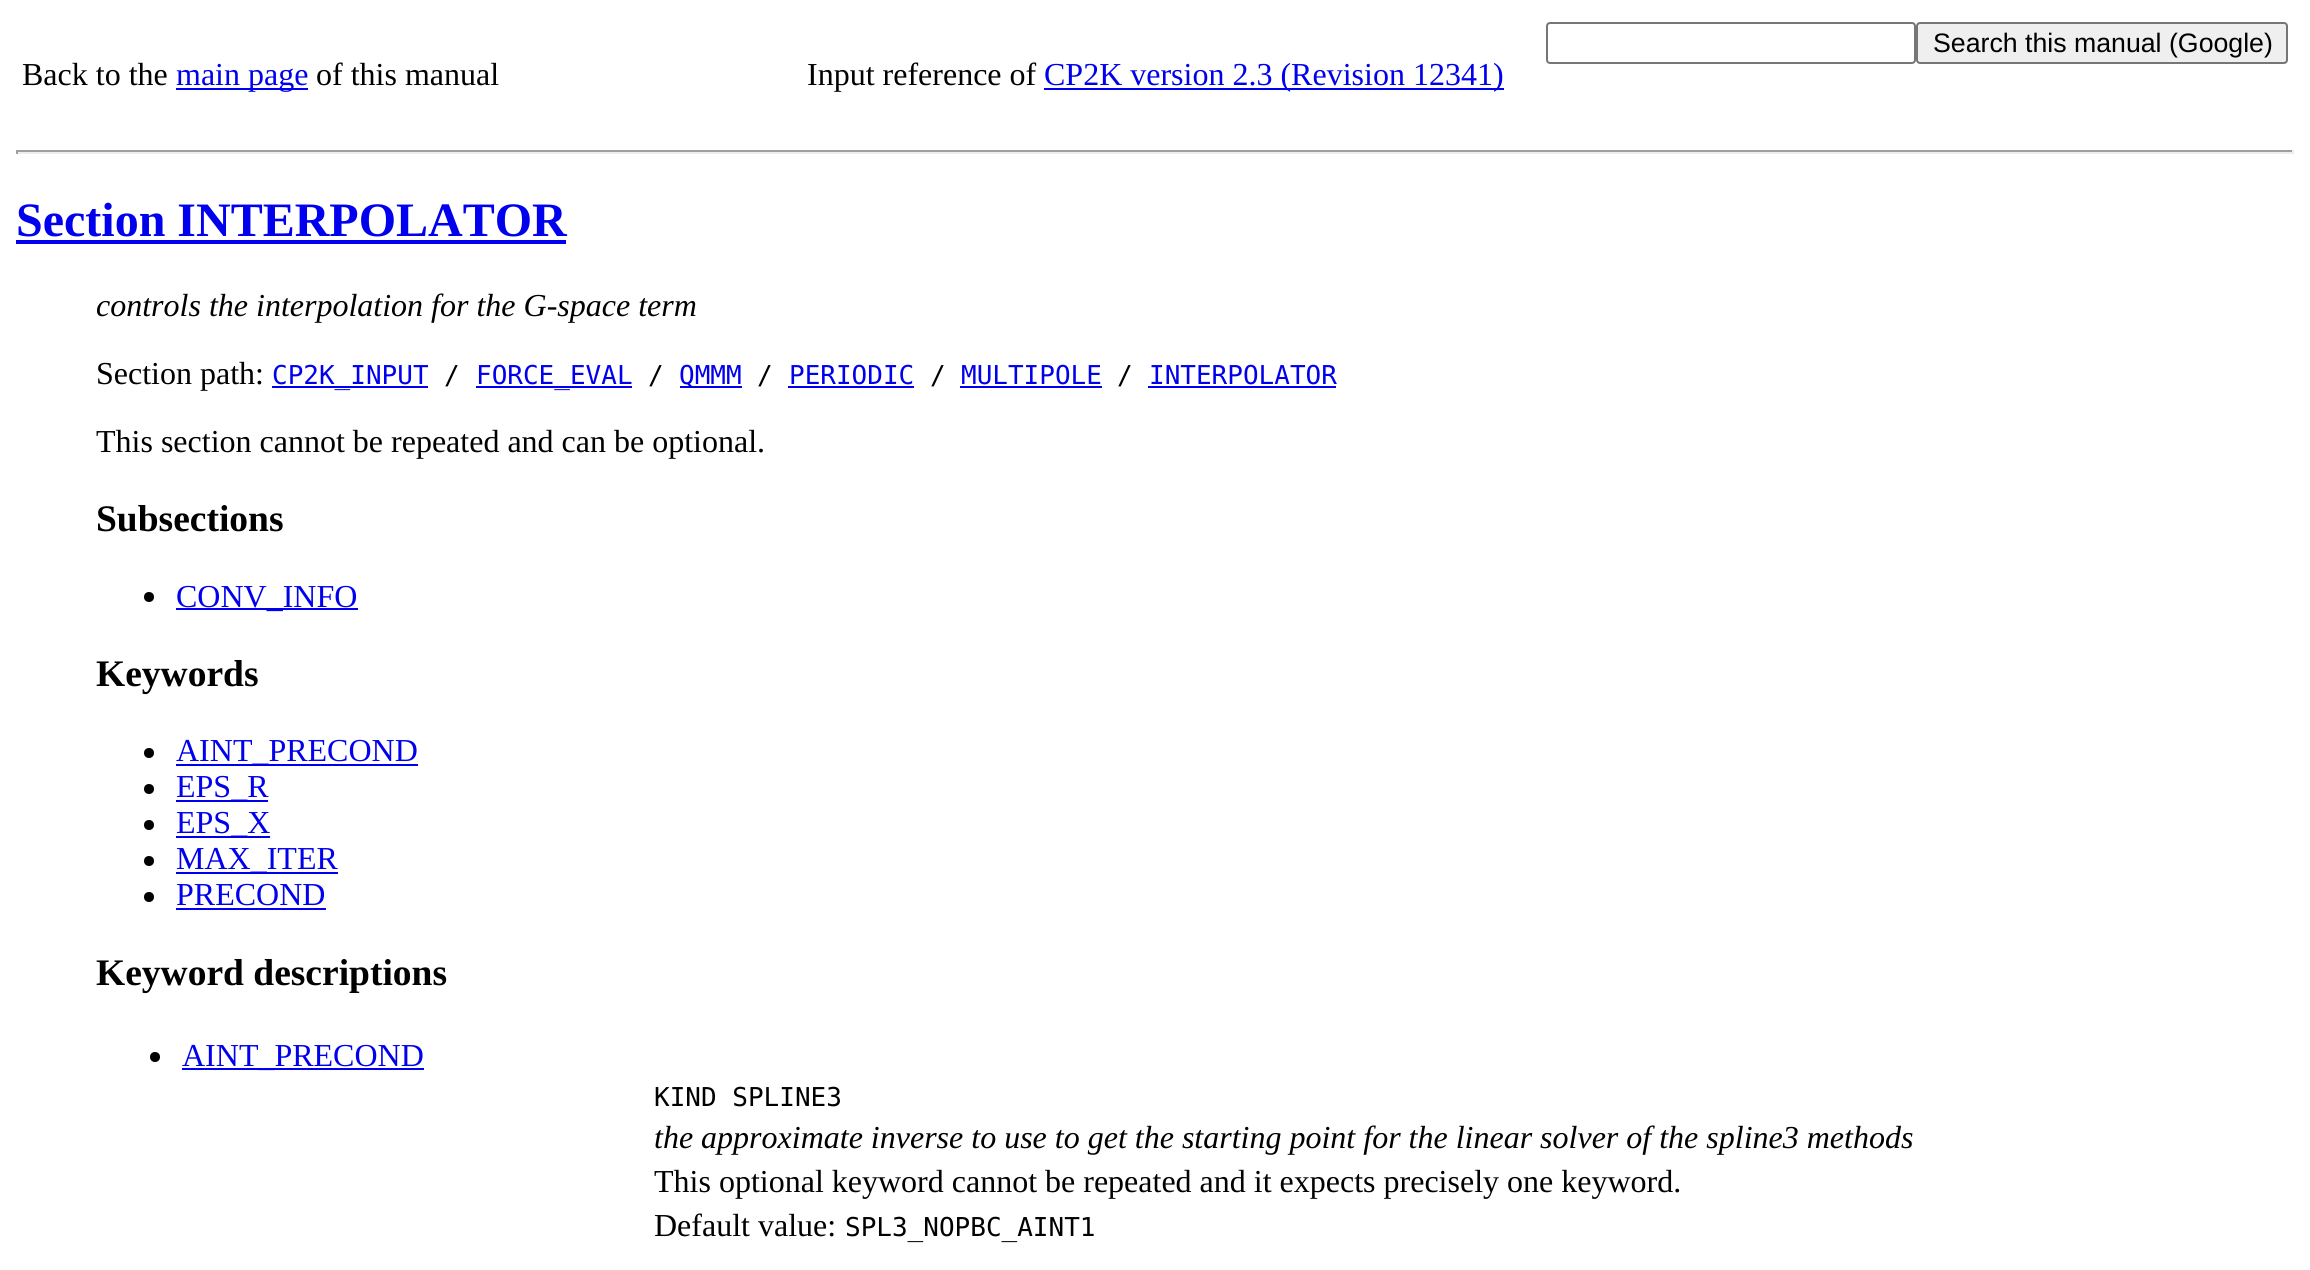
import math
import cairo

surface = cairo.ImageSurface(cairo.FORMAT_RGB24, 2310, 1270)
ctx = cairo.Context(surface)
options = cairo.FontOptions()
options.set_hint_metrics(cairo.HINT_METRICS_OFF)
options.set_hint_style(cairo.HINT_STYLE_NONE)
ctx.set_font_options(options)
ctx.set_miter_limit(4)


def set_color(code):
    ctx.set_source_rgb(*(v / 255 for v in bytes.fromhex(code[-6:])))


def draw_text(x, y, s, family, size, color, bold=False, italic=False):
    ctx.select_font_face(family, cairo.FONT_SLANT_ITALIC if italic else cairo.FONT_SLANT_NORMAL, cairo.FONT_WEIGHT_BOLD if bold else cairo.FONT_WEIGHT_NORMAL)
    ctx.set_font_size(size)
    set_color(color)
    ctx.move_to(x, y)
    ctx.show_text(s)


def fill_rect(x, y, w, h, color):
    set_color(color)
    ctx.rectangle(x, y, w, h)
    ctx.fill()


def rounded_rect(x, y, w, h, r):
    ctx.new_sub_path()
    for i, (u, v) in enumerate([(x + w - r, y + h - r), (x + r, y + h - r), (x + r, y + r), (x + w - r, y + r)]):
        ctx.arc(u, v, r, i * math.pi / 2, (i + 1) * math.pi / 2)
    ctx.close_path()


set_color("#ffffff")
ctx.paint()
rounded_rect(1547, 23, 368, 40, 3)
set_color("#767676")
ctx.stroke()
set_color("#efefef")
rounded_rect(1917, 23, 370, 40, 3)
ctx.fill_preserve()
set_color("#767676")
ctx.stroke()
draw_text(1933, 52, "Search this manual (Google)", "Liberation Sans", 26.7, "#000000")
draw_text(22, 85, "Back to the", "Liberation Serif", 32, "#000000")
fill_rect(176, 88, 132, 2, "#0000ee")
draw_text(176, 85, "main page", "Liberation Serif", 32, "#0000ee")
draw_text(316, 85, "of this manual", "Liberation Serif", 32, "#000000")
draw_text(807, 85, "Input reference of", "Liberation Serif", 32, "#000000")
fill_rect(1044, 88, 460, 2, "#0000ee")
draw_text(1044, 85, "CP2K version 2.3 (Revision 12341)", "Liberation Serif", 32, "#0000ee")
fill_rect(16, 150, 2278, 2, "#9f9f9f")
fill_rect(2292, 150, 2, 4, "#eeeeee")
fill_rect(16, 152, 2278, 2, "#eeeeee")
fill_rect(16, 150, 2, 4, "#9f9f9f")
draw_text(16, 236, "Section INTERPOLATOR", "Liberation Serif", 48, "#0000ee", bold=True)
fill_rect(16, 240, 550, 4, "#0000ee")
draw_text(96, 316, "controls the interpolation for the G-space term", "Liberation Serif", 32, "#000000", italic=True)
draw_text(96, 384, "Section path:", "Liberation Serif", 32, "#000000")
fill_rect(272, 386, 156, 2, "#0000ee")
draw_text(272, 384, "CP2K_INPUT", "DejaVu Sans Mono", 26, "#0000ee")
draw_text(444, 384, "/", "DejaVu Sans Mono", 26, "#000000")
fill_rect(476, 386, 156, 2, "#0000ee")
draw_text(476, 384, "FORCE_EVAL", "DejaVu Sans Mono", 26, "#0000ee")
draw_text(648, 384, "/", "DejaVu Sans Mono", 26, "#000000")
fill_rect(680, 386, 62, 2, "#0000ee")
draw_text(679, 384, "QMMM", "DejaVu Sans Mono", 26, "#0000ee")
draw_text(757, 384, "/", "DejaVu Sans Mono", 26, "#000000")
draw_text(789, 384, "PERIODIC", "DejaVu Sans Mono", 26, "#0000ee")
fill_rect(788, 386, 126, 2, "#0000ee")
draw_text(930, 384, "/", "DejaVu Sans Mono", 26, "#000000")
draw_text(961, 384, "MULTIPOLE", "DejaVu Sans Mono", 26, "#0000ee")
fill_rect(960, 386, 142, 2, "#0000ee")
draw_text(1117, 384, "/", "DejaVu Sans Mono", 26, "#000000")
draw_text(1149, 384, "INTERPOLATOR", "DejaVu Sans Mono", 26, "#0000ee")
fill_rect(1148, 386, 188, 2, "#0000ee")
draw_text(96, 452, "This section cannot be repeated and can be optional.", "Liberation Serif", 32, "#000000")
draw_text(96, 531, "Subsections", "Liberation Serif", 37.5, "#000000", bold=True)
ctx.new_path()
ctx.arc(149, 597, 5, 0, 2 * math.pi)
ctx.fill()
fill_rect(176, 608, 182, 2, "#0000ee")
draw_text(176, 607, "CONV_INFO", "Liberation Serif", 32, "#0000ee")
draw_text(96, 686, "Keywords", "Liberation Serif", 37.5, "#000000", bold=True)
ctx.new_path()
ctx.arc(149, 753, 5, 0, 2 * math.pi)
ctx.fill()
fill_rect(176, 764, 242, 2, "#0000ee")
draw_text(176, 761, "AINT_PRECOND", "Liberation Serif", 32, "#0000ee")
set_color("#000000")
ctx.new_path()
ctx.arc(149, 789, 5, 0, 2 * math.pi)
ctx.fill()
fill_rect(176, 800, 92, 2, "#0000ee")
draw_text(176, 797, "EPS_R", "Liberation Serif", 32, "#0000ee")
set_color("#000000")
ctx.new_path()
ctx.arc(149, 825, 5, 0, 2 * math.pi)
ctx.fill()
fill_rect(176, 836, 94, 2, "#0000ee")
draw_text(176, 833, "EPS_X", "Liberation Serif", 32, "#0000ee")
set_color("#000000")
ctx.new_path()
ctx.arc(149, 861, 5, 0, 2 * math.pi)
ctx.fill()
fill_rect(176, 872, 162, 2, "#0000ee")
draw_text(176, 869, "MAX_ITER", "Liberation Serif", 32, "#0000ee")
set_color("#000000")
ctx.new_path()
ctx.arc(149, 897, 5, 0, 2 * math.pi)
ctx.fill()
draw_text(176, 905, "PRECOND", "Liberation Serif", 32, "#0000ee")
fill_rect(176, 908, 150, 2, "#0000ee")
draw_text(96, 985, "Keyword descriptions", "Liberation Serif", 37.5, "#000000", bold=True)
ctx.new_path()
ctx.arc(155, 1057, 5, 0, 2 * math.pi)
ctx.fill()
fill_rect(182, 1068, 242, 2, "#0000ee")
draw_text(182, 1066, "AINT_PRECOND", "Liberation Serif", 32, "#0000ee")
draw_text(654, 1106, "KIND SPLINE3", "DejaVu Sans Mono", 26, "#000000")
draw_text(654, 1148, "the approximate inverse to use to get the starting point for the linear solver of the spline3 methods", "Liberation Serif", 32, "#000000", italic=True)
draw_text(654, 1192, "This optional keyword cannot be repeated and it expects precisely one keyword.", "Liberation Serif", 32, "#000000")
draw_text(654, 1236, "Default value:", "Liberation Serif", 32, "#000000")
draw_text(845, 1236, "SPL3_NOPBC_AINT1", "DejaVu Sans Mono", 26, "#000000")
surface.write_to_png("output.png")
